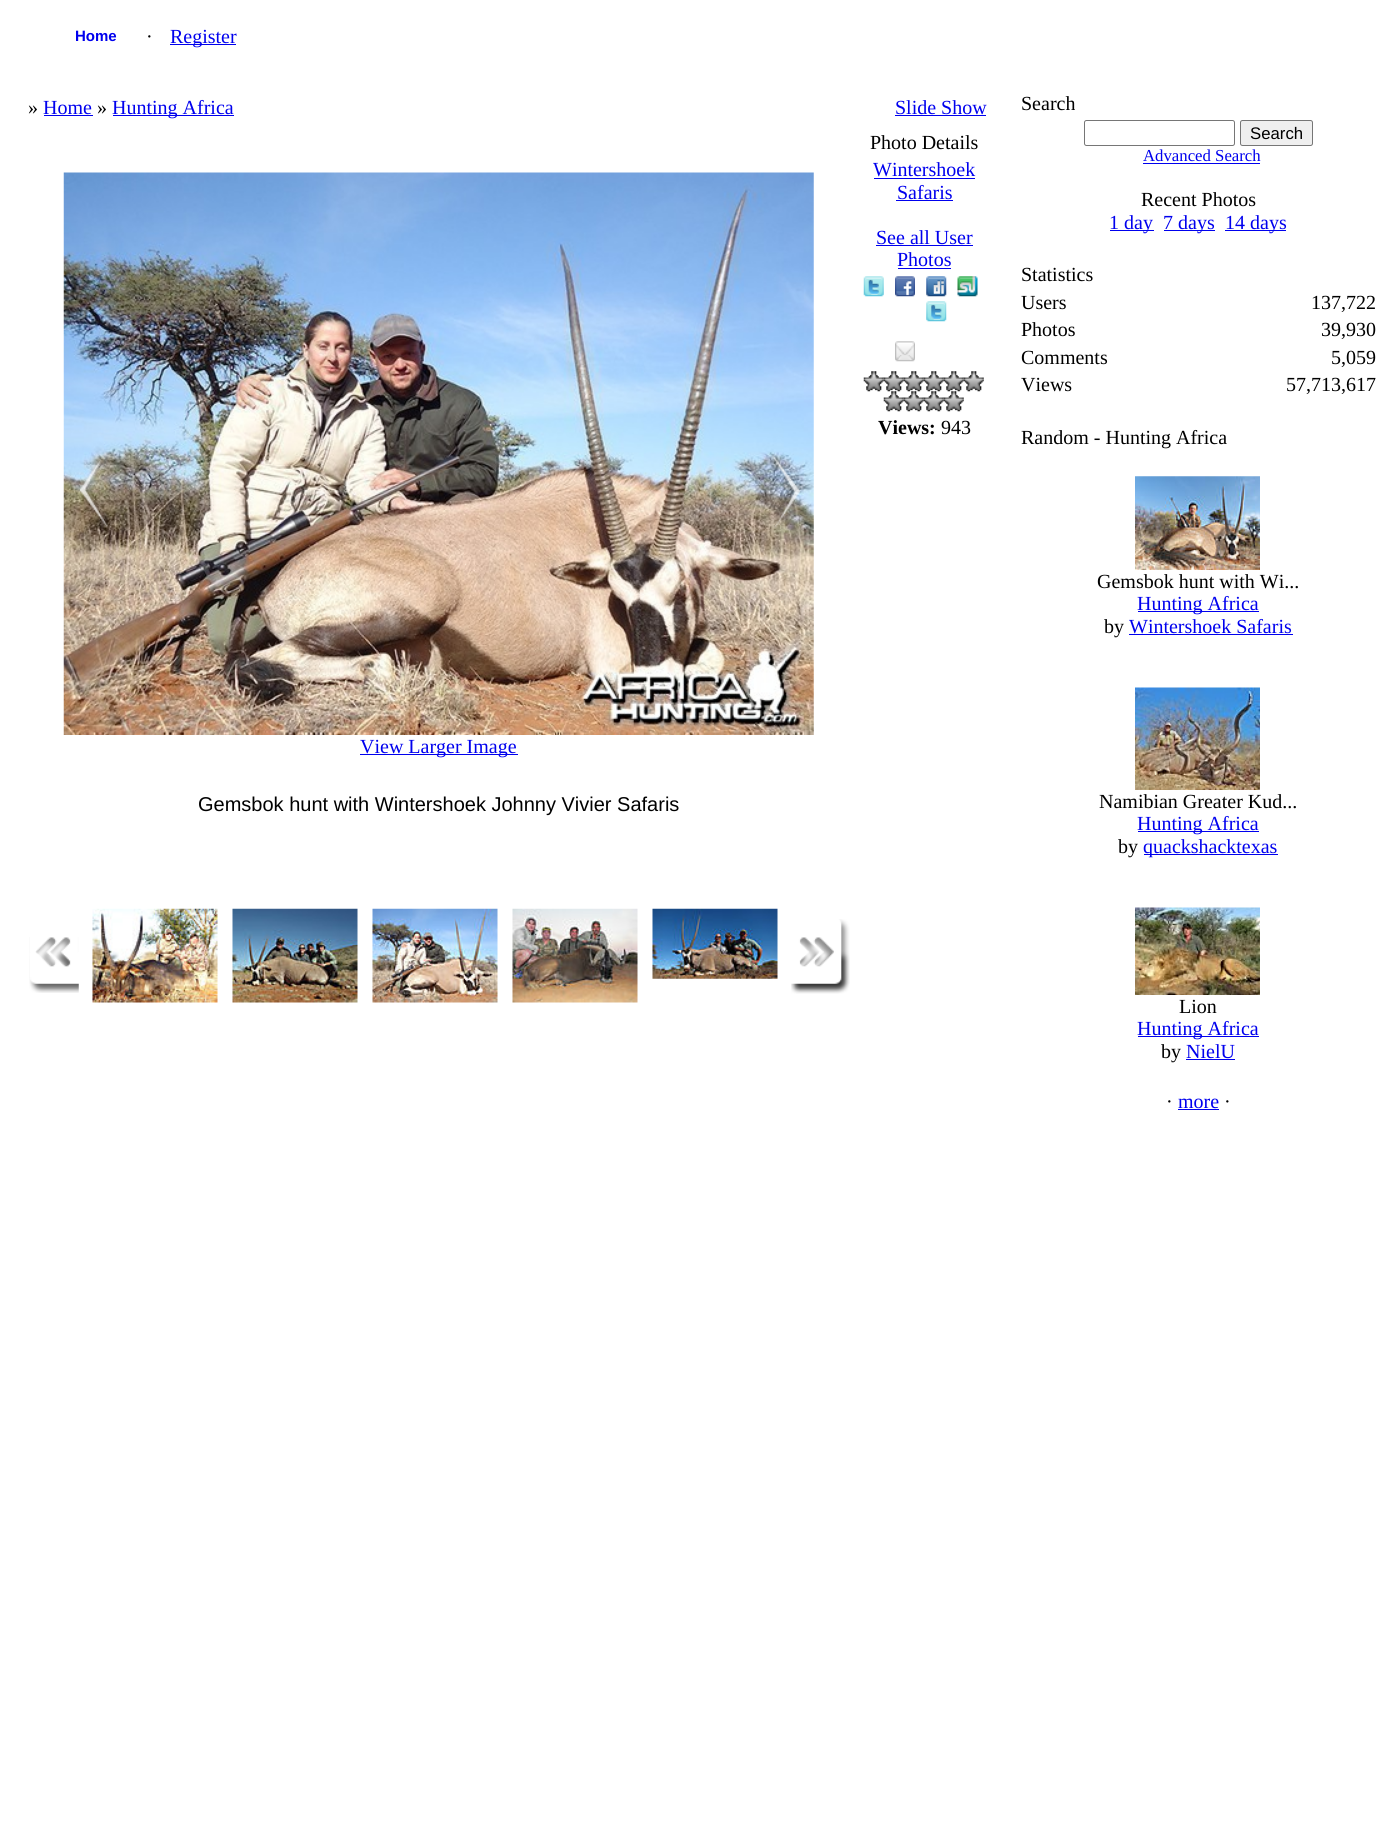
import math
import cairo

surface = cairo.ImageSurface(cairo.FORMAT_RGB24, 1400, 1831)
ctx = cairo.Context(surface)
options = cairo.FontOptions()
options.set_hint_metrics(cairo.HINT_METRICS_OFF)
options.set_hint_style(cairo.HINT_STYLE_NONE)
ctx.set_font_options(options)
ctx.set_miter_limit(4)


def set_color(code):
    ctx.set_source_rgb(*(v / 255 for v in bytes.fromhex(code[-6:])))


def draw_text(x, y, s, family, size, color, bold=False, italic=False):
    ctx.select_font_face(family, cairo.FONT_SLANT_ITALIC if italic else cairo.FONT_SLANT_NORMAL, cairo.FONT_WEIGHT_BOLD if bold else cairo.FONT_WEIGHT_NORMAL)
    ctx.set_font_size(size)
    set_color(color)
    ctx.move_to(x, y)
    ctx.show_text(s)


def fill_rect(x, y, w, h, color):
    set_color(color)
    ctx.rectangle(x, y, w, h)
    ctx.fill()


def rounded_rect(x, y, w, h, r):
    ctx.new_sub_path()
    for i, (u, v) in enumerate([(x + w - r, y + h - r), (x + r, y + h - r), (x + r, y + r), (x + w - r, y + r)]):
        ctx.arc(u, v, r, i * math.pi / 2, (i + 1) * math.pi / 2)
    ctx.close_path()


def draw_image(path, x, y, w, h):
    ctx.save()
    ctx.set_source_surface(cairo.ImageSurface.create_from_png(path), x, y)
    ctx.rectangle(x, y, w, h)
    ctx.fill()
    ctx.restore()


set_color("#ffffff")
ctx.paint()
draw_text(75, 41, "Home", "Liberation Sans", 15, "#0000ee", bold=True)
draw_text(146, 43, "·", "Liberation Serif", 20, "#000000")
fill_rect(170, 44, 66, 1, "#0000ee")
draw_text(170, 43, "Register", "Liberation Serif", 20, "#0000ee")
draw_text(28, 114, "»", "Liberation Serif", 20, "#000000")
draw_text(43, 114, "Home", "Liberation Serif", 20, "#0000ee")
fill_rect(44, 115, 49, 1, "#0000ee")
draw_text(97, 114, "»", "Liberation Serif", 20, "#000000")
fill_rect(113, 115, 121, 1, "#0000ee")
draw_text(112, 114, "Hunting Africa", "Liberation Serif", 20, "#0000ee")
draw_text(895, 114, "Slide Show", "Liberation Serif", 20, "#0000ee")
fill_rect(895, 115, 91, 1, "#0000ee")
draw_text(870, 149, "Photo Details", "Liberation Serif", 20, "#000000")
draw_text(873, 176, "Wintershoek", "Liberation Serif", 20, "#0000ee")
fill_rect(874, 178, 101, 1, "#0000ee")
draw_text(897, 199, "Safaris", "Liberation Serif", 20, "#0000ee")
fill_rect(896, 200, 57, 1, "#0000ee")
draw_text(876, 244, "See all User", "Liberation Serif", 20, "#0000ee")
fill_rect(876, 245, 97, 1, "#0000ee")
draw_text(897, 266, "Photos", "Liberation Serif", 20, "#0000ee")
fill_rect(898, 268, 53, 1, "#0000ee")
draw_image("assets/img1.png", 863, 276, 21, 21)
draw_image("assets/img2.png", 895, 276, 20, 21)
draw_image("assets/img3.png", 926, 276, 21, 21)
draw_image("assets/img4.png", 957, 276, 21, 21)
draw_image("assets/img5.png", 926, 301, 21, 21)
draw_image("assets/img6.png", 895, 341, 20, 21)
draw_image("assets/img7.png", 863, 371, 21, 21)
draw_image("assets/img8.png", 883, 371, 21, 21)
draw_image("assets/img8.png", 903, 371, 21, 21)
draw_image("assets/img8.png", 923, 371, 21, 21)
draw_image("assets/img8.png", 943, 371, 21, 21)
draw_image("assets/img8.png", 963, 371, 21, 21)
draw_image("assets/img9.png", 883, 391, 21, 21)
draw_image("assets/img10.png", 903, 391, 21, 21)
draw_image("assets/img10.png", 923, 391, 21, 21)
draw_image("assets/img10.png", 943, 391, 21, 21)
draw_text(878, 434, "Views:", "Liberation Serif", 20, "#000000", bold=True)
draw_text(941, 434, "943", "Liberation Serif", 20, "#000000")
draw_image("assets/img11.png", 63, 172, 751, 563)
draw_image("assets/img12.png", 80, 453, 28, 74)
draw_image("assets/img13.png", 769, 454, 32, 74)
fill_rect(360, 754, 158, 1, "#0000ee")
draw_text(360, 753, "View Larger Image", "Liberation Serif", 20, "#0000ee")
draw_text(198, 811, "Gemsbok hunt with Wintershoek Johnny Vivier Safaris", "Liberation Sans", 20, "#000000")
draw_image("assets/img14.png", 29, 937, 50, 56)
draw_image("assets/img15.png", 92, 908, 126, 95)
draw_image("assets/img16.png", 232, 908, 126, 95)
draw_image("assets/img17.png", 372, 908, 126, 95)
draw_image("assets/img18.png", 512, 908, 126, 95)
draw_image("assets/img19.png", 652, 908, 126, 71)
draw_image("assets/img20.png", 791, 919, 59, 75)
draw_text(1021, 110, "Search", "Liberation Serif", 20, "#000000")
rounded_rect(1084.5, 120.5, 150, 25, 2)
set_color("#767676")
ctx.set_line_width(1)
ctx.stroke()
set_color("#efefef")
rounded_rect(1240.5, 120.5, 72, 25, 2)
ctx.fill_preserve()
set_color("#767676")
ctx.stroke()
draw_text(1250, 139, "Search", "Liberation Sans", 16.75, "#000000")
draw_text(1143, 161, "Advanced Search", "Liberation Serif", 16.75, "#0000ee")
fill_rect(1143, 163, 117, 1, "#0000ee")
draw_text(1141, 206, "Recent Photos", "Liberation Serif", 20, "#000000")
fill_rect(1110, 230, 44, 1, "#0000ee")
draw_text(1109, 229, "1 day", "Liberation Serif", 20, "#0000ee")
fill_rect(1164, 230, 51, 1, "#0000ee")
draw_text(1163, 229, "7 days", "Liberation Serif", 20, "#0000ee")
fill_rect(1225, 230, 61, 1, "#0000ee")
draw_text(1225, 229, "14 days", "Liberation Serif", 20, "#0000ee")
draw_text(1021, 281, "Statistics", "Liberation Serif", 20, "#000000")
draw_text(1021, 309, "Users", "Liberation Serif", 20, "#000000")
draw_text(1311, 309, "137,722", "Liberation Serif", 20, "#000000")
draw_text(1021, 336, "Photos", "Liberation Serif", 20, "#000000")
draw_text(1321, 336, "39,930", "Liberation Serif", 20, "#000000")
draw_text(1021, 364, "Comments", "Liberation Serif", 20, "#000000")
draw_text(1331, 364, "5,059", "Liberation Serif", 20, "#000000")
draw_text(1021, 391, "Views", "Liberation Serif", 20, "#000000")
draw_text(1286, 391, "57,713,617", "Liberation Serif", 20, "#000000")
draw_text(1021, 444, "Random - Hunting Africa", "Liberation Serif", 20, "#000000")
draw_image("assets/img21.png", 1135, 476, 125, 94)
draw_text(1097, 588, "Gemsbok hunt with Wi...", "Liberation Serif", 20, "#000000")
fill_rect(1138, 611, 121, 1, "#0000ee")
draw_text(1137, 610, "Hunting Africa", "Liberation Serif", 20, "#0000ee")
draw_text(1104, 633, "by", "Liberation Serif", 20, "#000000")
fill_rect(1129, 634, 164, 1, "#0000ee")
draw_text(1129, 633, "Wintershoek Safaris", "Liberation Serif", 20, "#0000ee")
draw_image("assets/img22.png", 1135, 687, 125, 103)
draw_text(1099, 808, "Namibian Greater Kud...", "Liberation Serif", 20, "#000000")
fill_rect(1138, 831, 121, 1, "#0000ee")
draw_text(1137, 830, "Hunting Africa", "Liberation Serif", 20, "#0000ee")
draw_text(1118, 853, "by", "Liberation Serif", 20, "#000000")
fill_rect(1144, 854, 134, 1, "#0000ee")
draw_text(1143, 853, "quackshacktexas", "Liberation Serif", 20, "#0000ee")
draw_image("assets/img23.png", 1135, 907, 125, 88)
draw_text(1179, 1013, "Lion", "Liberation Serif", 20, "#000000")
fill_rect(1138, 1036, 121, 1, "#0000ee")
draw_text(1137, 1035, "Hunting Africa", "Liberation Serif", 20, "#0000ee")
draw_text(1161, 1058, "by", "Liberation Serif", 20, "#000000")
fill_rect(1186, 1059, 49, 1, "#0000ee")
draw_text(1186, 1058, "NielU", "Liberation Serif", 20, "#0000ee")
draw_text(1166, 1108, "·", "Liberation Serif", 20, "#000000")
draw_text(1178, 1108, "more", "Liberation Serif", 20, "#0000ee")
fill_rect(1178, 1109, 41, 1, "#0000ee")
draw_text(1224, 1108, "·", "Liberation Serif", 20, "#000000")
surface.write_to_png("output.png")
